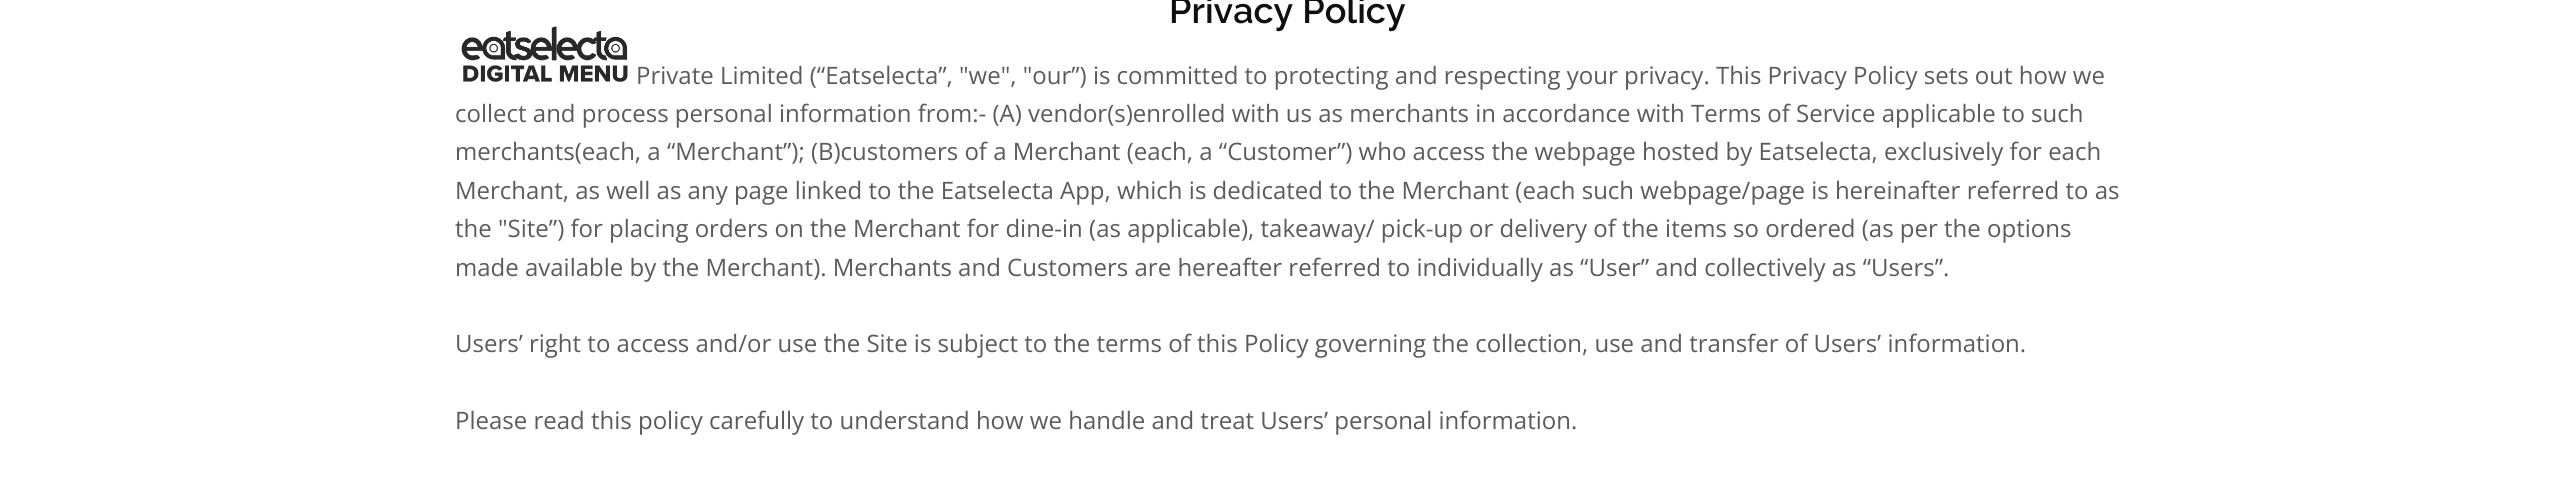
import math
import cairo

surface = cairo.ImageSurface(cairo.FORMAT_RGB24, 2575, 489)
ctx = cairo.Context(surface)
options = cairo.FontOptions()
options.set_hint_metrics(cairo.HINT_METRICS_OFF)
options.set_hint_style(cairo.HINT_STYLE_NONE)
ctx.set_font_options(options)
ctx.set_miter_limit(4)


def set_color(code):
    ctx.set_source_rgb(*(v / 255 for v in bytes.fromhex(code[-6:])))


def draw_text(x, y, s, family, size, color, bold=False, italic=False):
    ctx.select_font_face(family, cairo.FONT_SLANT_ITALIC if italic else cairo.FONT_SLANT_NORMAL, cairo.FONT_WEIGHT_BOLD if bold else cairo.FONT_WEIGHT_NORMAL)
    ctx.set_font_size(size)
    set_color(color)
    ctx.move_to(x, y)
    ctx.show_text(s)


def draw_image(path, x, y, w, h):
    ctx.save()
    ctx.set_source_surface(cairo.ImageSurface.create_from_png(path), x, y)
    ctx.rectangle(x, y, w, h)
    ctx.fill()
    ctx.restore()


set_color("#ffffff")
ctx.paint()
draw_text(1169, 23, "Privacy Policy", "Raleway SemiBold", 36, "#0f0f0f")
draw_text(636, 84, "Private Limited (“Eatselecta”, \"we\", \"our”) is committed to protecting and respecting your privacy. This Privacy Policy sets out how we", "Open Sans", 24, "#5b5b5b")
draw_text(455, 122, "collect and process personal information from:- (A) vendor(s)enrolled with us as merchants in accordance with Terms of Service applicable to such", "Open Sans", 24, "#5b5b5b")
draw_text(455, 160, "merchants(each, a “Merchant”); (B)customers of a Merchant (each, a “Customer”) who access the webpage hosted by Eatselecta, exclusively for each", "Open Sans", 24, "#5b5b5b")
draw_text(455, 199, "Merchant, as well as any page linked to the Eatselecta App, which is dedicated to the Merchant (each such webpage/page is hereinafter referred to as", "Open Sans", 24, "#5b5b5b")
draw_text(455, 237, "the \"Site”) for placing orders on the Merchant for dine-in (as applicable), takeaway/ pick-up or delivery of the items so ordered (as per the options", "Open Sans", 24, "#5b5b5b")
draw_text(455, 276, "made available by the Merchant). Merchants and Customers are hereafter referred to individually as “User” and collectively as “Users”.", "Open Sans", 24, "#5b5b5b")
draw_text(455, 352, "Users’ right to access and/or use the Site is subject to the terms of this Policy governing the collection, use and transfer of Users’ information.", "Open Sans", 24, "#5b5b5b")
draw_text(455, 429, "Please read this policy carefully to understand how we handle and treat Users’ personal information.", "Open Sans", 24, "#5b5b5b")
draw_image("assets/img1.png", 461, 26, 167, 56)
surface.write_to_png("output.png")
